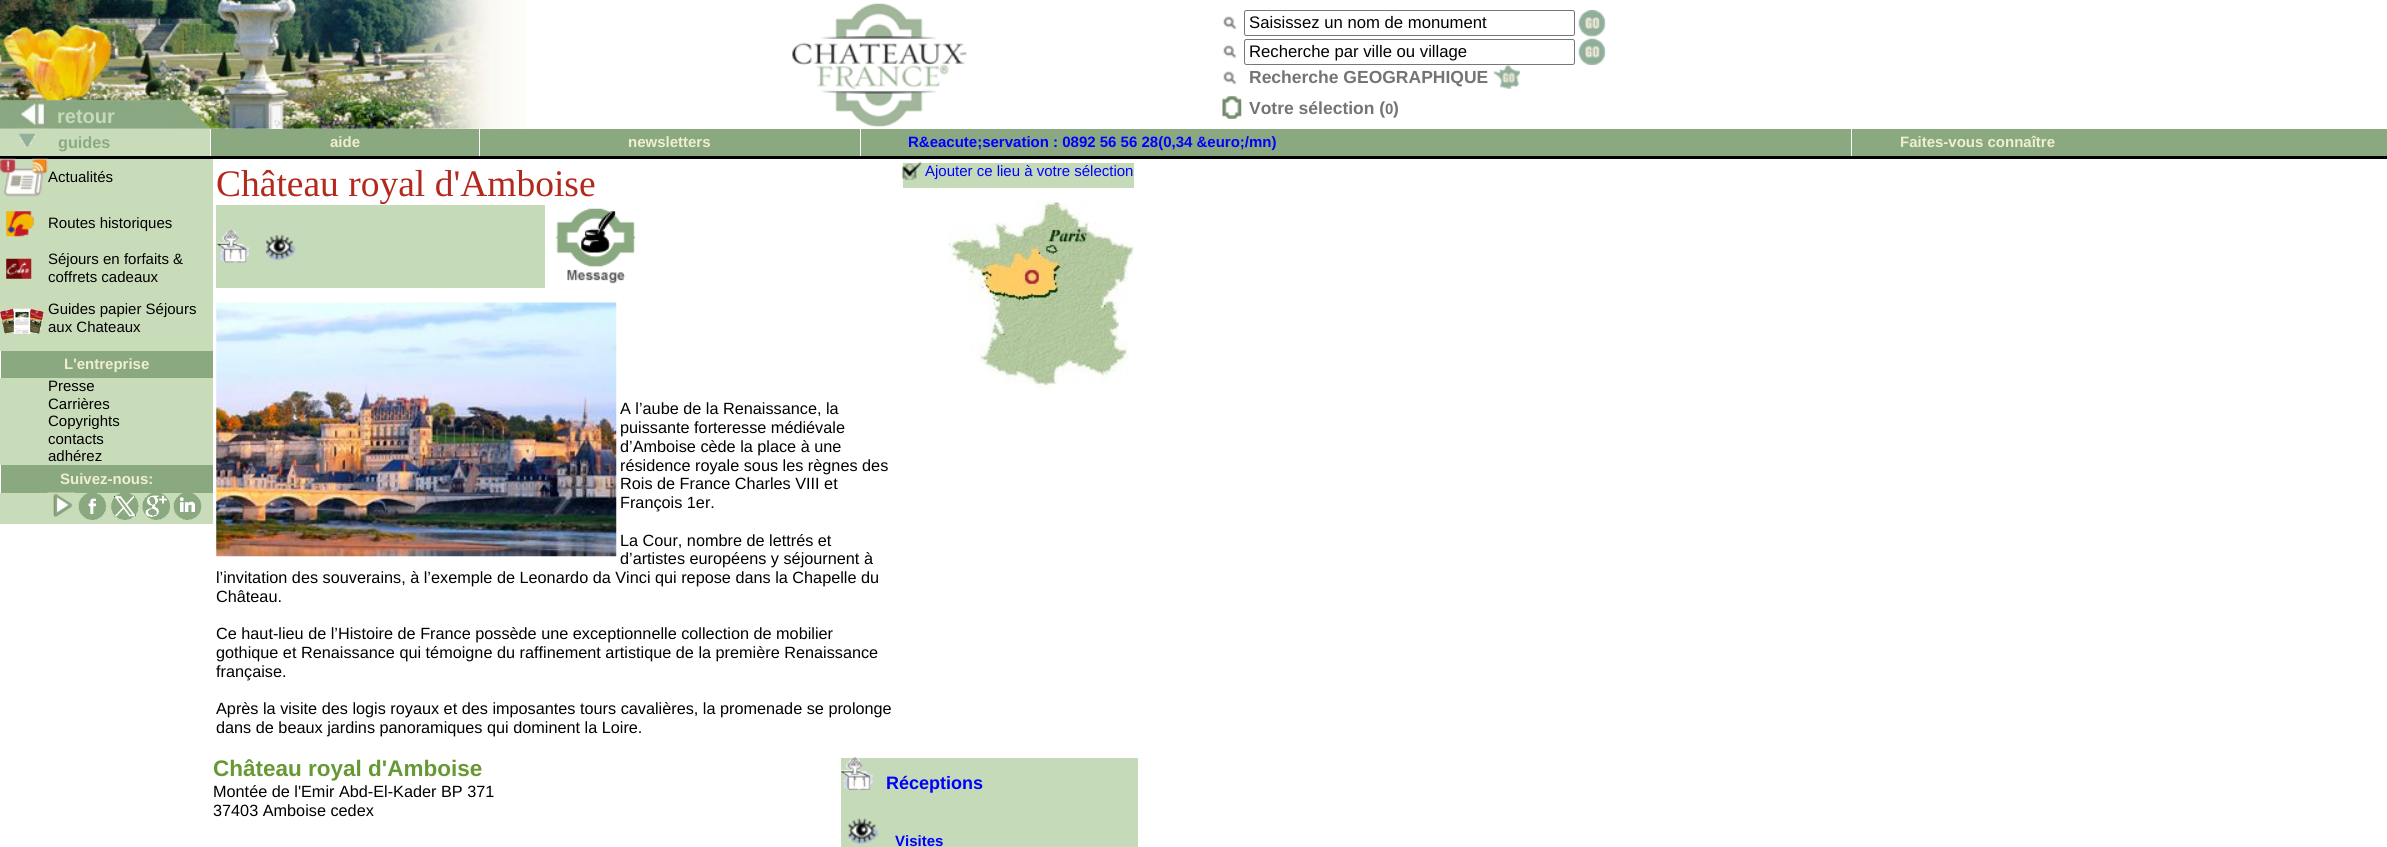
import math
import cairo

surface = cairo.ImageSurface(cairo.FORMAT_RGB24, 2387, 847)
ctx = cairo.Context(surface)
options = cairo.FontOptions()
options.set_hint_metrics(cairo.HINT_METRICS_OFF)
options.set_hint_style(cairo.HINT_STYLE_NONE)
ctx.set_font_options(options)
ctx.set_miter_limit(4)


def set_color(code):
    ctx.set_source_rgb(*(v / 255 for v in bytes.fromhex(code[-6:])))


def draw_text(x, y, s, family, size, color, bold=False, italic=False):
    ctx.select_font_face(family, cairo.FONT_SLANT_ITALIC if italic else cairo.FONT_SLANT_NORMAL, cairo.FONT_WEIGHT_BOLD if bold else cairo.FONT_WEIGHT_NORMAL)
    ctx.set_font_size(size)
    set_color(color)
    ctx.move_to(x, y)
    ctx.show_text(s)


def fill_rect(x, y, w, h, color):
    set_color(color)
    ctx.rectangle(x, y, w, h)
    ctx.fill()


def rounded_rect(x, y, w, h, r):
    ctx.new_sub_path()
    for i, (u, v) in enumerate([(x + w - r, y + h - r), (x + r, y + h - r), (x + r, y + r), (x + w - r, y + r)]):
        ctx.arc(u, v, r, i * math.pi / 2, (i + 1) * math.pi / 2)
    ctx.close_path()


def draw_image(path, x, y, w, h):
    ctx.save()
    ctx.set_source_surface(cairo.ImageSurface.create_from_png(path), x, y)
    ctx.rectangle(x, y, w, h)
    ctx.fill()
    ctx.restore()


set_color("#ffffff")
ctx.paint()
draw_image("assets/img1.png", 0, 0, 526, 129)
draw_text(57, 123, "retour", "Liberation Sans", 20, "#c5dab8", bold=True)
draw_image("assets/img2.png", 792, 3, 175, 124)
draw_image("assets/img3.png", 1223, 16, 14, 14)
rounded_rect(1244.5, 10.5, 330, 25, 2)
set_color("#767676")
ctx.set_line_width(1)
ctx.stroke()
draw_text(1249, 28, "Saisissez un nom de monument", "Liberation Sans", 16.7, "#000000")
draw_image("assets/img4.png", 1578, 10, 28, 27)
draw_image("assets/img5.png", 1223, 45, 14, 14)
rounded_rect(1244.5, 39.5, 330, 25, 2)
set_color("#767676")
ctx.stroke()
draw_text(1249, 57, "Recherche par ville ou village", "Liberation Sans", 16.7, "#000000")
draw_image("assets/img6.png", 1578, 38, 28, 27)
draw_image("assets/img3.png", 1223, 71, 14, 14)
draw_text(1249, 83, "Recherche GEOGRAPHIQUE", "Liberation Sans", 17.5, "#737477", bold=True)
draw_image("assets/img7.png", 1493, 64, 27, 25)
draw_image("assets/img8.png", 1222, 96, 20, 23)
draw_text(1249, 114, "Votre sélection (", "Liberation Sans", 17.5, "#737477", bold=True)
draw_text(1385, 114, "0", "Liberation Sans", 15, "#737477", bold=True)
draw_text(1393, 114, ")", "Liberation Sans", 17.5, "#737477", bold=True)
fill_rect(0, 129, 210, 27, "#c9dcba")
draw_image("assets/img9.png", 18, 133, 17, 15)
draw_text(58, 148, "guides", "Liberation Sans", 16.25, "#8ba981", bold=True)
fill_rect(211, 129, 268, 27, "#8ba981")
draw_text(330, 147, "aide", "Liberation Sans", 15, "#efefd0", bold=True)
fill_rect(480, 129, 380, 27, "#8ba981")
draw_text(628, 147, "newsletters", "Liberation Sans", 15, "#efefd0", bold=True)
fill_rect(861, 129, 990, 27, "#8ba981")
draw_text(908, 147, "R&eacute;servation : 0892 56 56 28(0,34 &euro;/mn)", "Liberation Sans", 15, "#0000ff", bold=True)
fill_rect(1852, 129, 535, 27, "#8ba981")
draw_text(1900, 147, "Faites-vous connaître", "Liberation Sans", 15, "#efefd0", bold=True)
fill_rect(0, 156, 2387, 3, "#000000")
fill_rect(0, 159, 213, 365, "#c9dcba")
draw_image("assets/img10.png", 0, 158, 48, 39)
draw_text(48, 182, "Actualités", "Liberation Sans", 15, "#000000")
draw_image("assets/img11.png", 6, 211, 28, 26)
draw_text(48, 228, "Routes historiques", "Liberation Sans", 15, "#000000")
draw_image("assets/img12.png", 6, 258, 26, 21)
draw_text(48, 264, "Séjours en forfaits &", "Liberation Sans", 15, "#000000")
draw_text(48, 282, "coffrets cadeaux", "Liberation Sans", 15, "#000000")
draw_image("assets/img13.png", 0, 308, 44, 26)
draw_text(48, 314, "Guides papier Séjours", "Liberation Sans", 15, "#000000")
draw_text(48, 332, "aux Chateaux", "Liberation Sans", 15, "#000000")
fill_rect(1, 351, 212, 27, "#8ba981")
fill_rect(0, 351, 1, 27, "#ffffff")
draw_text(64, 369, "L'entreprise", "Liberation Sans", 15, "#efefd0", bold=True)
draw_text(48, 391, "Presse", "Liberation Sans", 15, "#000000")
draw_text(48, 409, "Carrières", "Liberation Sans", 15, "#000000")
draw_text(48, 426, "Copyrights", "Liberation Sans", 15, "#000000")
draw_text(48, 444, "contacts", "Liberation Sans", 15, "#000000")
draw_text(48, 461, "adhérez", "Liberation Sans", 15, "#000000")
fill_rect(1, 465, 212, 28, "#8ba981")
fill_rect(0, 465, 1, 28, "#ffffff")
draw_text(60, 484, "Suivez-nous:", "Liberation Sans", 15, "#efefd0", bold=True)
draw_image("assets/img14.png", 47, 492, 28, 25)
draw_image("assets/img15.png", 78, 493, 29, 27)
draw_image("assets/img16.png", 111, 493, 28, 27)
draw_image("assets/img17.png", 142, 493, 28, 27)
draw_image("assets/img18.png", 173, 493, 29, 27)
draw_text(216, 196, "Château royal d'Amboise", "Liberation Serif", 37.5, "#b3291e")
fill_rect(216, 205, 329, 83, "#c5dab8")
draw_image("assets/img19.png", 217, 230, 32, 33)
draw_image("assets/img20.png", 265, 235, 31, 26)
draw_image("assets/img21.png", 556, 208, 80, 76)
draw_image("assets/img22.png", 216, 302, 401, 255)
draw_text(620, 414, "A l’aube de la Renaissance, la", "Liberation Sans", 16.25, "#000000")
draw_text(620, 433, "puissante forteresse médiévale", "Liberation Sans", 16.25, "#000000")
draw_text(620, 452, "d’Amboise cède la place à une", "Liberation Sans", 16.25, "#000000")
draw_text(620, 471, "résidence royale sous les règnes des", "Liberation Sans", 16.25, "#000000")
draw_text(620, 489, "Rois de France Charles VIII et", "Liberation Sans", 16.25, "#000000")
draw_text(620, 508, "François 1er.", "Liberation Sans", 16.25, "#000000")
draw_text(620, 546, "La Cour, nombre de lettrés et", "Liberation Sans", 16.25, "#000000")
draw_text(620, 564, "d’artistes européens y séjournent à", "Liberation Sans", 16.25, "#000000")
draw_text(216, 583, "l’invitation des souverains, à l’exemple de Leonardo da Vinci qui repose dans la Chapelle du", "Liberation Sans", 16.25, "#000000")
draw_text(216, 602, "Château.", "Liberation Sans", 16.25, "#000000")
draw_text(216, 639, "Ce haut-lieu de l’Histoire de France possède une exceptionnelle collection de mobilier", "Liberation Sans", 16.25, "#000000")
draw_text(216, 658, "gothique et Renaissance qui témoigne du raffinement artistique de la première Renaissance", "Liberation Sans", 16.25, "#000000")
draw_text(216, 677, "française.", "Liberation Sans", 16.25, "#000000")
draw_text(216, 714, "Après la visite des logis royaux et des imposantes tours cavalières, la promenade se prolonge", "Liberation Sans", 16.25, "#000000")
draw_text(216, 733, "dans de beaux jardins panoramiques qui dominent la Loire.", "Liberation Sans", 16.25, "#000000")
fill_rect(903, 163, 231, 25, "#c5dab9")
draw_image("assets/img23.png", 902, 162, 20, 18)
draw_text(925, 176, "Ajouter ce lieu à votre sélection", "Liberation Sans", 15, "#0000ff")
draw_image("assets/img24.png", 948, 202, 186, 186)
draw_text(213, 776, "Château royal d'Amboise", "Liberation Sans", 22.5, "#669933", bold=True)
draw_text(213, 797, "Montée de l'Emir Abd-El-Kader BP 371", "Liberation Sans", 16.25, "#000000")
draw_text(213, 816, "37403 Amboise cedex", "Liberation Sans", 16.25, "#000000")
fill_rect(841, 758, 297, 89, "#c5dab8")
draw_image("assets/img25.png", 841, 757, 32, 33)
draw_text(886, 789, "Réceptions", "Liberation Sans", 18, "#0000ff", bold=True)
draw_image("assets/img26.png", 847, 818, 32, 27)
draw_text(895, 846, "Visites", "Liberation Sans", 15, "#0000ff", bold=True)
surface.write_to_png("output.png")
